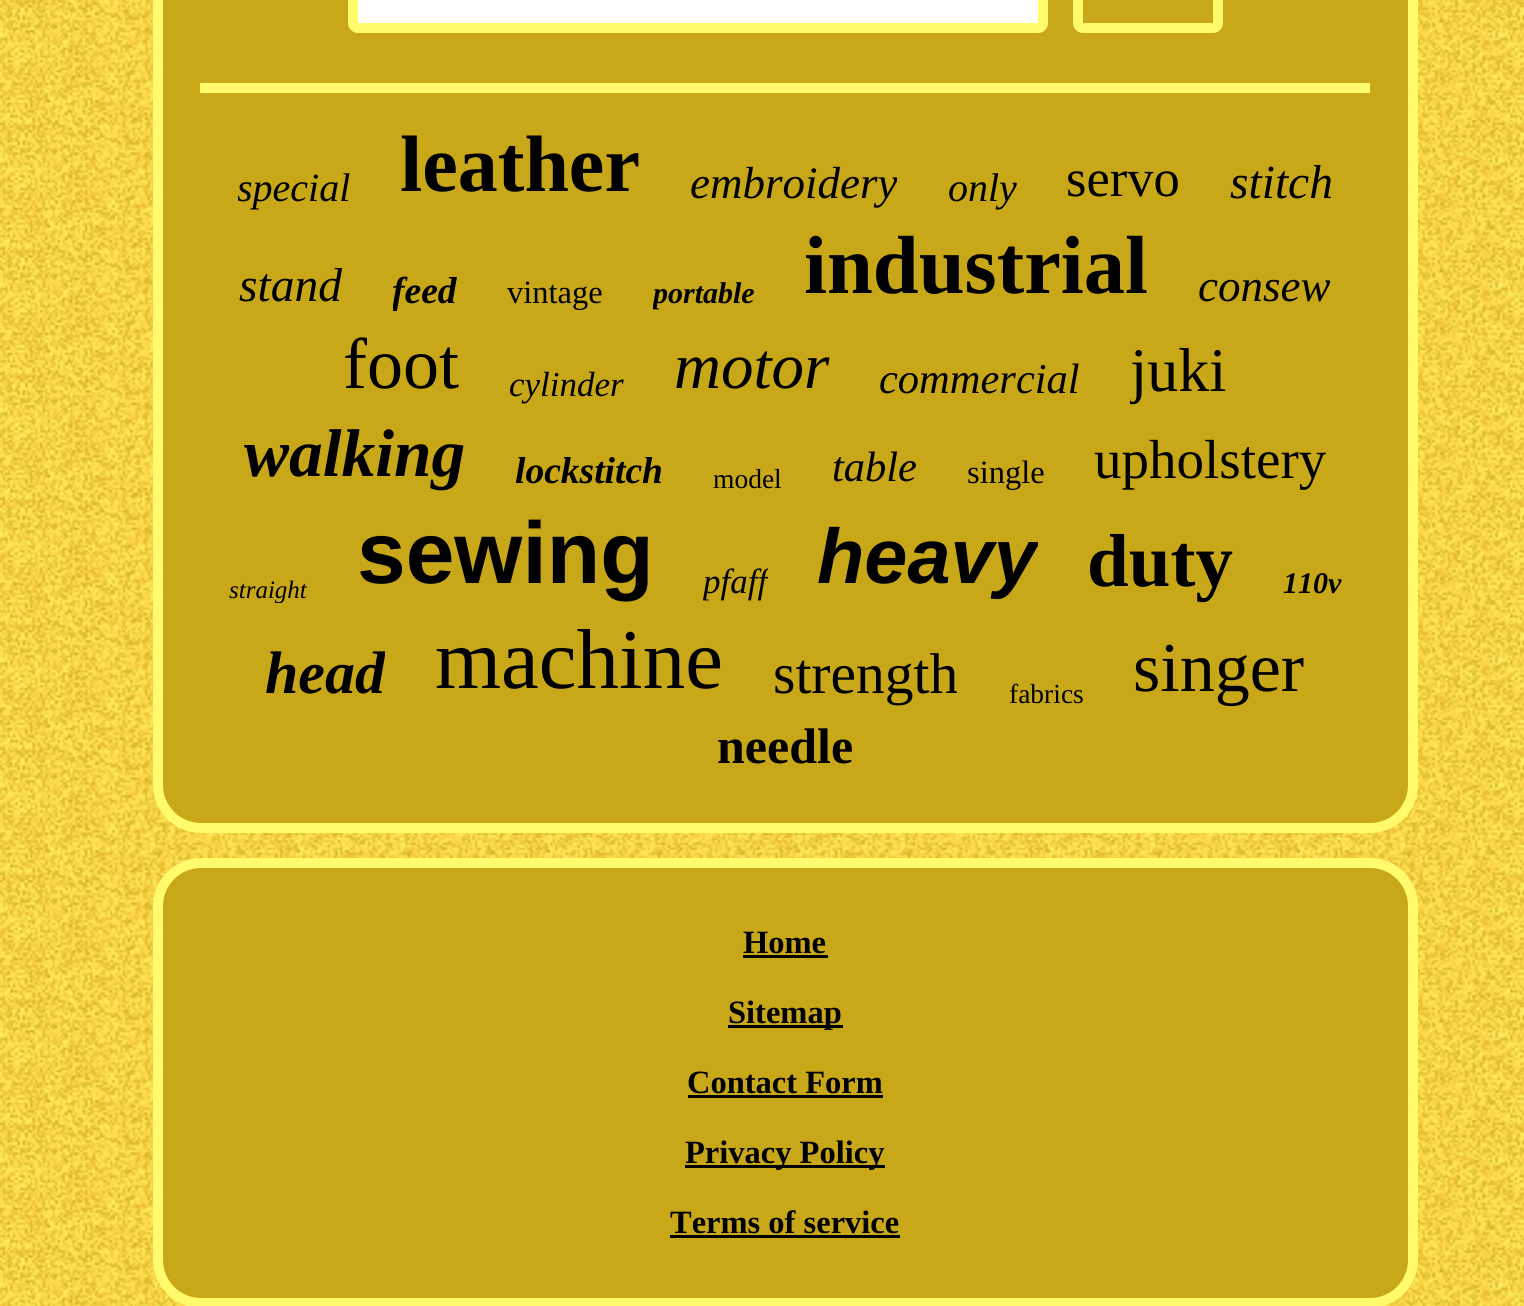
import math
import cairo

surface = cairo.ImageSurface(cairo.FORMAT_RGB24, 1524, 1306)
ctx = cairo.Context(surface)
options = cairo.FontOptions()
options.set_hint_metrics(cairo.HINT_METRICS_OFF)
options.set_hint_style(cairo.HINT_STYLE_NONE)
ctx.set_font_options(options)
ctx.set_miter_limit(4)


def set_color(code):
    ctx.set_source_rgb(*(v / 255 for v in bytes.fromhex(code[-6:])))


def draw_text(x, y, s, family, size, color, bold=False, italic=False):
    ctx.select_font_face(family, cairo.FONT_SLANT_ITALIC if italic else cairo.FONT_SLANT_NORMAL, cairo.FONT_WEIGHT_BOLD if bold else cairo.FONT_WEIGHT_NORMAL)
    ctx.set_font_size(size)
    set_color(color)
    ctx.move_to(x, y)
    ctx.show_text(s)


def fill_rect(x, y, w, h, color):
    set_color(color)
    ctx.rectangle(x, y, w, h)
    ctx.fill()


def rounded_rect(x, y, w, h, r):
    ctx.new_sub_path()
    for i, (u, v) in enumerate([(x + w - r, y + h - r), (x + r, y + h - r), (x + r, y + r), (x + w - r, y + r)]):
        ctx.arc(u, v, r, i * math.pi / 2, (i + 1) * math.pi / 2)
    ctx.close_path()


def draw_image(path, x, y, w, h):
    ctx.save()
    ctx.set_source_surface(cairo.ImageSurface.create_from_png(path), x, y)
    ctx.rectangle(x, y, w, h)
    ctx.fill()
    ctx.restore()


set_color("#ffffff")
ctx.paint()
draw_image("assets/img1.png", 0, 0, 1524, 1306)
set_color("#c8a819")
rounded_rect(158, -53, 1255, 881, 43)
ctx.fill_preserve()
set_color("#fffb6c")
ctx.set_line_width(10)
ctx.stroke()
set_color("#ffffff")
rounded_rect(353, -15, 690, 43, 5)
ctx.fill_preserve()
set_color("#fffb6c")
ctx.stroke()
rounded_rect(1078, -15, 140, 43, 5)
ctx.stroke()
fill_rect(200, 83, 1170, 10, "#fffb6c")
ctx.save()
ctx.rectangle(238, 165, 112, 45)
ctx.clip()
draw_text(237, 201, "special", "Liberation Serif", 40, "#000000", italic=True)
ctx.restore()
draw_text(400, 191, "leather", "Liberation Serif", 80, "#000000", bold=True)
draw_text(690, 198, "embroidery", "Liberation Serif", 45, "#000000", italic=True)
draw_text(948, 201, "only", "Liberation Serif", 40, "#000000", italic=True)
draw_text(1066, 196, "servo", "Liberation Serif", 52.5, "#000000")
draw_text(1230, 198, "stitch", "Liberation Serif", 47.5, "#000000", italic=True)
draw_text(239, 301, "stand", "Liberation Serif", 47.5, "#000000", italic=True)
ctx.save()
ctx.rectangle(393, 270, 65, 43)
ctx.clip()
draw_text(392, 303, "feed", "Liberation Serif", 37.5, "#000000", bold=True, italic=True)
ctx.restore()
draw_text(507, 303, "vintage", "Liberation Serif", 32.5, "#000000")
ctx.save()
ctx.rectangle(653, 275, 102, 38)
ctx.clip()
draw_text(653, 303, "portable", "Liberation Serif", 30, "#000000", bold=True, italic=True)
ctx.restore()
draw_text(804, 293, "industrial", "Liberation Serif", 82.5, "#000000", bold=True)
draw_text(1198, 301, "consew", "Liberation Serif", 45, "#000000", italic=True)
draw_text(343, 388, "foot", "Liberation Serif", 72, "#000000")
draw_text(509, 396, "cylinder", "Liberation Serif", 35, "#000000", italic=True)
draw_text(674, 388, "motor", "Liberation Serif", 65, "#000000", italic=True)
draw_text(879, 393, "commercial", "Liberation Serif", 42.5, "#000000", italic=True)
ctx.save()
ctx.rectangle(1130, 335, 98, 70)
ctx.clip()
draw_text(1130, 391, "juki", "Liberation Serif", 62, "#000000")
ctx.restore()
draw_text(244, 476, "walking", "Liberation Serif", 67.5, "#000000", bold=True, italic=True)
draw_text(515, 483, "lockstitch", "Liberation Serif", 37.5, "#000000", bold=True, italic=True)
draw_text(713, 488, "model", "Liberation Serif", 27.5, "#000000")
draw_text(832, 481, "table", "Liberation Serif", 42.5, "#000000", italic=True)
ctx.save()
ctx.rectangle(968, 453, 77, 40)
ctx.clip()
draw_text(967, 483, "single", "Liberation Serif", 32.5, "#000000")
ctx.restore()
draw_text(1094, 478, "upholstery", "Liberation Serif", 55, "#000000")
ctx.save()
ctx.rectangle(228, 575, 80, 28)
ctx.clip()
draw_text(229, 598, "straight", "Liberation Serif", 25, "#000000", italic=True)
ctx.restore()
draw_text(357, 583, "sewing", "Liberation Sans", 87.5, "#000000", bold=True)
ctx.save()
ctx.rectangle(703, 563, 65, 40)
ctx.clip()
draw_text(703, 593, "pfaff", "Liberation Serif", 35, "#000000", italic=True)
ctx.restore()
ctx.save()
ctx.rectangle(818, 513, 220, 90)
ctx.clip()
draw_text(817, 583, "heavy", "Liberation Sans", 77.5, "#000000", bold=True, italic=True)
ctx.restore()
draw_text(1087, 586, "duty", "Liberation Serif", 75, "#000000", bold=True)
draw_text(1283, 593, "110v", "Liberation Serif", 30, "#000000", bold=True, italic=True)
ctx.save()
ctx.rectangle(265, 640, 120, 68)
ctx.clip()
draw_text(265, 693, "head", "Liberation Serif", 60, "#000000", bold=True, italic=True)
ctx.restore()
draw_text(435, 688, "machine", "Liberation Serif", 85, "#000000")
draw_text(773, 693, "strength", "Liberation Serif", 57.5, "#000000")
draw_text(1009, 703, "fabrics", "Liberation Serif", 27.5, "#000000")
draw_text(1133, 691, "singer", "Liberation Serif", 70, "#000000")
draw_text(717, 763, "needle", "Liberation Serif", 50, "#000000", bold=True)
set_color("#c8a819")
rounded_rect(158, 863, 1255, 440, 43)
ctx.fill_preserve()
set_color("#fffb6c")
ctx.stroke()
draw_text(743, 953, "Home", "Liberation Serif", 32.5, "#000000", bold=True)
fill_rect(743, 955, 85, 3, "#000000")
fill_rect(728, 1025, 115, 3, "#000000")
draw_text(728, 1023, "Sitemap", "Liberation Serif", 32.5, "#000000", bold=True)
draw_text(687, 1093, "Contact Form", "Liberation Serif", 32.5, "#000000", bold=True)
fill_rect(688, 1095, 195, 3, "#000000")
fill_rect(685, 1165, 200, 3, "#000000")
draw_text(685, 1163, "Privacy Policy", "Liberation Serif", 32.5, "#000000", bold=True)
draw_text(670, 1233, "Terms of service", "Liberation Serif", 32.5, "#000000", bold=True)
fill_rect(670, 1235, 230, 3, "#000000")
surface.write_to_png("output.png")
